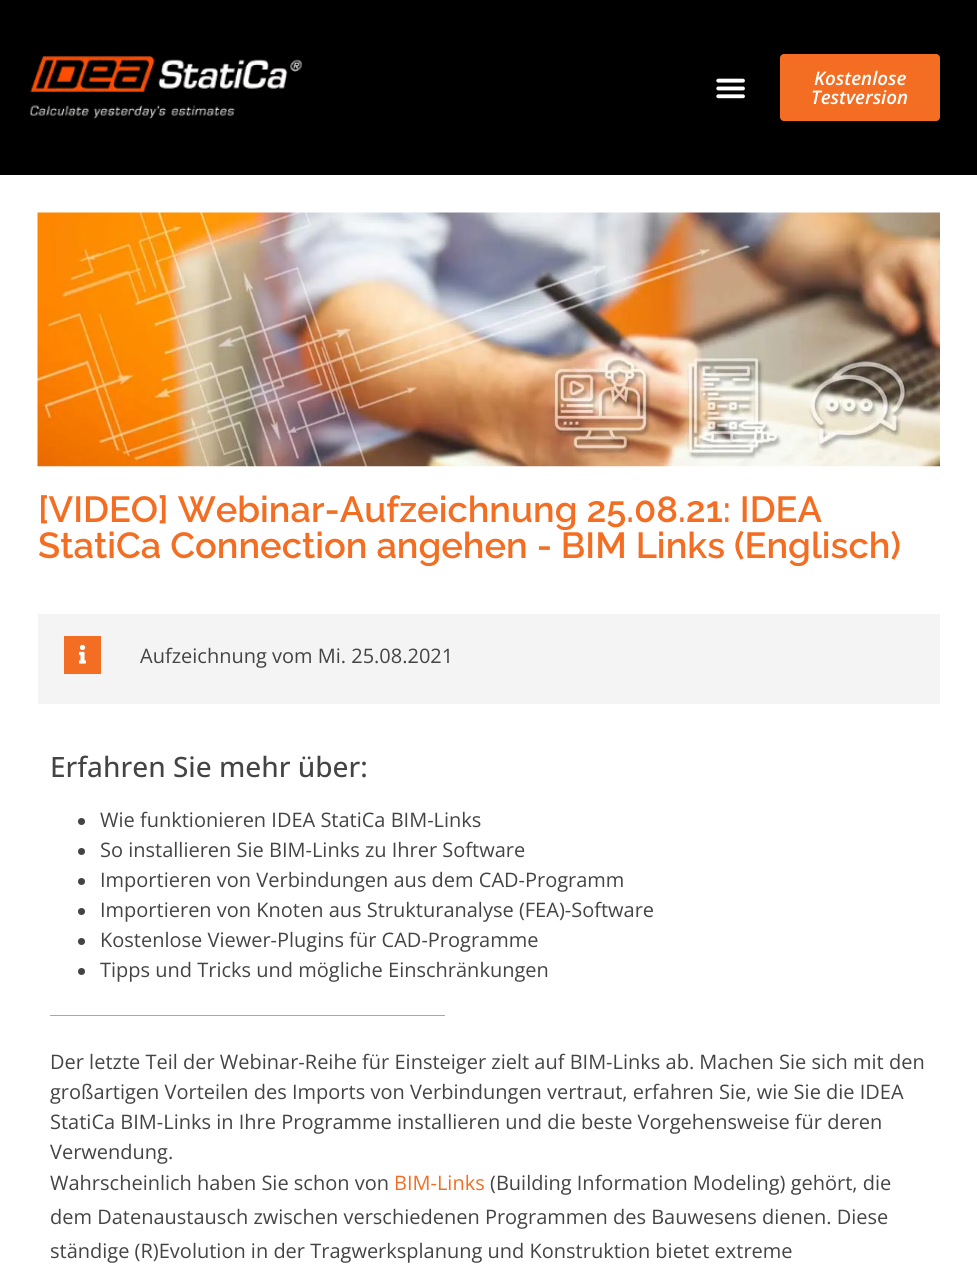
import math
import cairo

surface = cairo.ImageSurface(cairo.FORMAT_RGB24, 977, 1284)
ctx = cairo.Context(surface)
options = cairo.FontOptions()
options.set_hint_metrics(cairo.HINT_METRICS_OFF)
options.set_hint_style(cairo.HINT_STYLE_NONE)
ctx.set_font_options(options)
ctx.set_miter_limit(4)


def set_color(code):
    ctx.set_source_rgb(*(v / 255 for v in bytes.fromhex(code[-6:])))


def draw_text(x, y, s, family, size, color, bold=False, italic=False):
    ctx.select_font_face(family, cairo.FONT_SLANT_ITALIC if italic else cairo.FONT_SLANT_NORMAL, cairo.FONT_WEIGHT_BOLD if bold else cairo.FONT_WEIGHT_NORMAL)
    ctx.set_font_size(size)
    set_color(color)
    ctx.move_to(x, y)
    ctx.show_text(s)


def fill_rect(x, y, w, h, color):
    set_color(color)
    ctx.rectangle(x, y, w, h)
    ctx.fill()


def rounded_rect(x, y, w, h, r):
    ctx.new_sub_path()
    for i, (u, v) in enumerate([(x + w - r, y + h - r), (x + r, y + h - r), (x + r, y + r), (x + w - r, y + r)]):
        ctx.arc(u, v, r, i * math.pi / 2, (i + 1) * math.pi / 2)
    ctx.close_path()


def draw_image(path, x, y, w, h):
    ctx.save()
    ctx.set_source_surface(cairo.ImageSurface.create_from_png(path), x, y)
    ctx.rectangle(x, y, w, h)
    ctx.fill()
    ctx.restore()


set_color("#ffffff")
ctx.paint()
fill_rect(0, 0, 977, 175, "#000000")
draw_image("assets/img1.png", 30, 56, 273, 65)
draw_image("assets/img2.png", 716, 78, 29, 21)
set_color("#f36e22")
rounded_rect(780, 54, 160, 67, 4)
ctx.fill()
draw_text(814, 85, "Kostenlose", "Open Sans SemiBold", 18.75, "#ffffff", italic=True)
draw_text(811, 104, "Testversion", "Open Sans SemiBold", 18.75, "#ffffff", italic=True)
draw_image("assets/img3.png", 37, 212, 903, 255)
draw_text(38, 522, "[VIDEO] Webinar-Aufzeichnung 25.08.21: IDEA", "Raleway Thin", 36.25, "#f36e22")
draw_text(38, 558, "StatiCa Connection angehen - BIM Links (Englisch)", "Raleway Thin", 36.25, "#f36e22")
fill_rect(38, 614, 902, 90, "#f4f4f4")
fill_rect(64, 636, 37, 38, "#f36e22")
draw_image("assets/img4.png", 79, 644, 7, 20)
draw_text(140, 663, "Aufzeichnung vom Mi. 25.08.2021", "Open Sans", 20, "#444444")
draw_text(50, 777, "Erfahren Sie mehr über:", "Open Sans Medium", 28, "#444444")
ctx.new_path()
ctx.arc(81.5, 821.5, 3.5, 0, 2 * math.pi)
ctx.fill()
draw_text(100, 827, "Wie funktionieren IDEA StatiCa BIM-Links", "Open Sans", 20, "#444444")
ctx.new_path()
ctx.arc(81.5, 851.5, 3.5, 0, 2 * math.pi)
ctx.fill()
draw_text(100, 857, "So installieren Sie BIM-Links zu Ihrer Software", "Open Sans", 20, "#444444")
ctx.new_path()
ctx.arc(81.5, 881.5, 3.5, 0, 2 * math.pi)
ctx.fill()
draw_text(100, 887, "Importieren von Verbindungen aus dem CAD-Programm", "Open Sans", 20, "#444444")
ctx.new_path()
ctx.arc(81.5, 911.5, 3.5, 0, 2 * math.pi)
ctx.fill()
draw_text(100, 917, "Importieren von Knoten aus Strukturanalyse (FEA)-Software", "Open Sans", 20, "#444444")
ctx.new_path()
ctx.arc(81.5, 941.5, 3.5, 0, 2 * math.pi)
ctx.fill()
draw_text(100, 947, "Kostenlose Viewer-Plugins für CAD-Programme", "Open Sans", 20, "#444444")
ctx.new_path()
ctx.arc(81.5, 971.5, 3.5, 0, 2 * math.pi)
ctx.fill()
draw_text(100, 977, "Tipps und Tricks und mögliche Einschränkungen", "Open Sans", 20, "#444444")
fill_rect(50, 1015, 395, 1, "#a7a7a7")
draw_text(50, 1069, "Der letzte Teil der Webinar-Reihe für Einsteiger zielt auf BIM-Links ab. Machen Sie sich mit den", "Open Sans", 20, "#444444")
draw_text(50, 1099, "großartigen Vorteilen des Imports von Verbindungen vertraut, erfahren Sie, wie Sie die IDEA", "Open Sans", 20, "#444444")
draw_text(50, 1129, "StatiCa BIM-Links in Ihre Programme installieren und die beste Vorgehensweise für deren", "Open Sans", 20, "#444444")
draw_text(50, 1159, "Verwendung.", "Open Sans", 20, "#444444")
draw_text(50, 1190, "Wahrscheinlich haben Sie schon von", "Open Sans", 20, "#444444")
draw_text(394, 1190, "BIM-Links", "Open Sans", 20, "#f36e22")
draw_text(490, 1190, "(Building Information Modeling) gehört, die", "Open Sans", 20, "#444444")
draw_text(50, 1224, "dem Datenaustausch zwischen verschiedenen Programmen des Bauwesens dienen. Diese", "Open Sans", 20, "#444444")
draw_text(50, 1258, "ständige (R)Evolution in der Tragwerksplanung und Konstruktion bietet extreme", "Open Sans", 20, "#444444")
surface.write_to_png("output.png")
